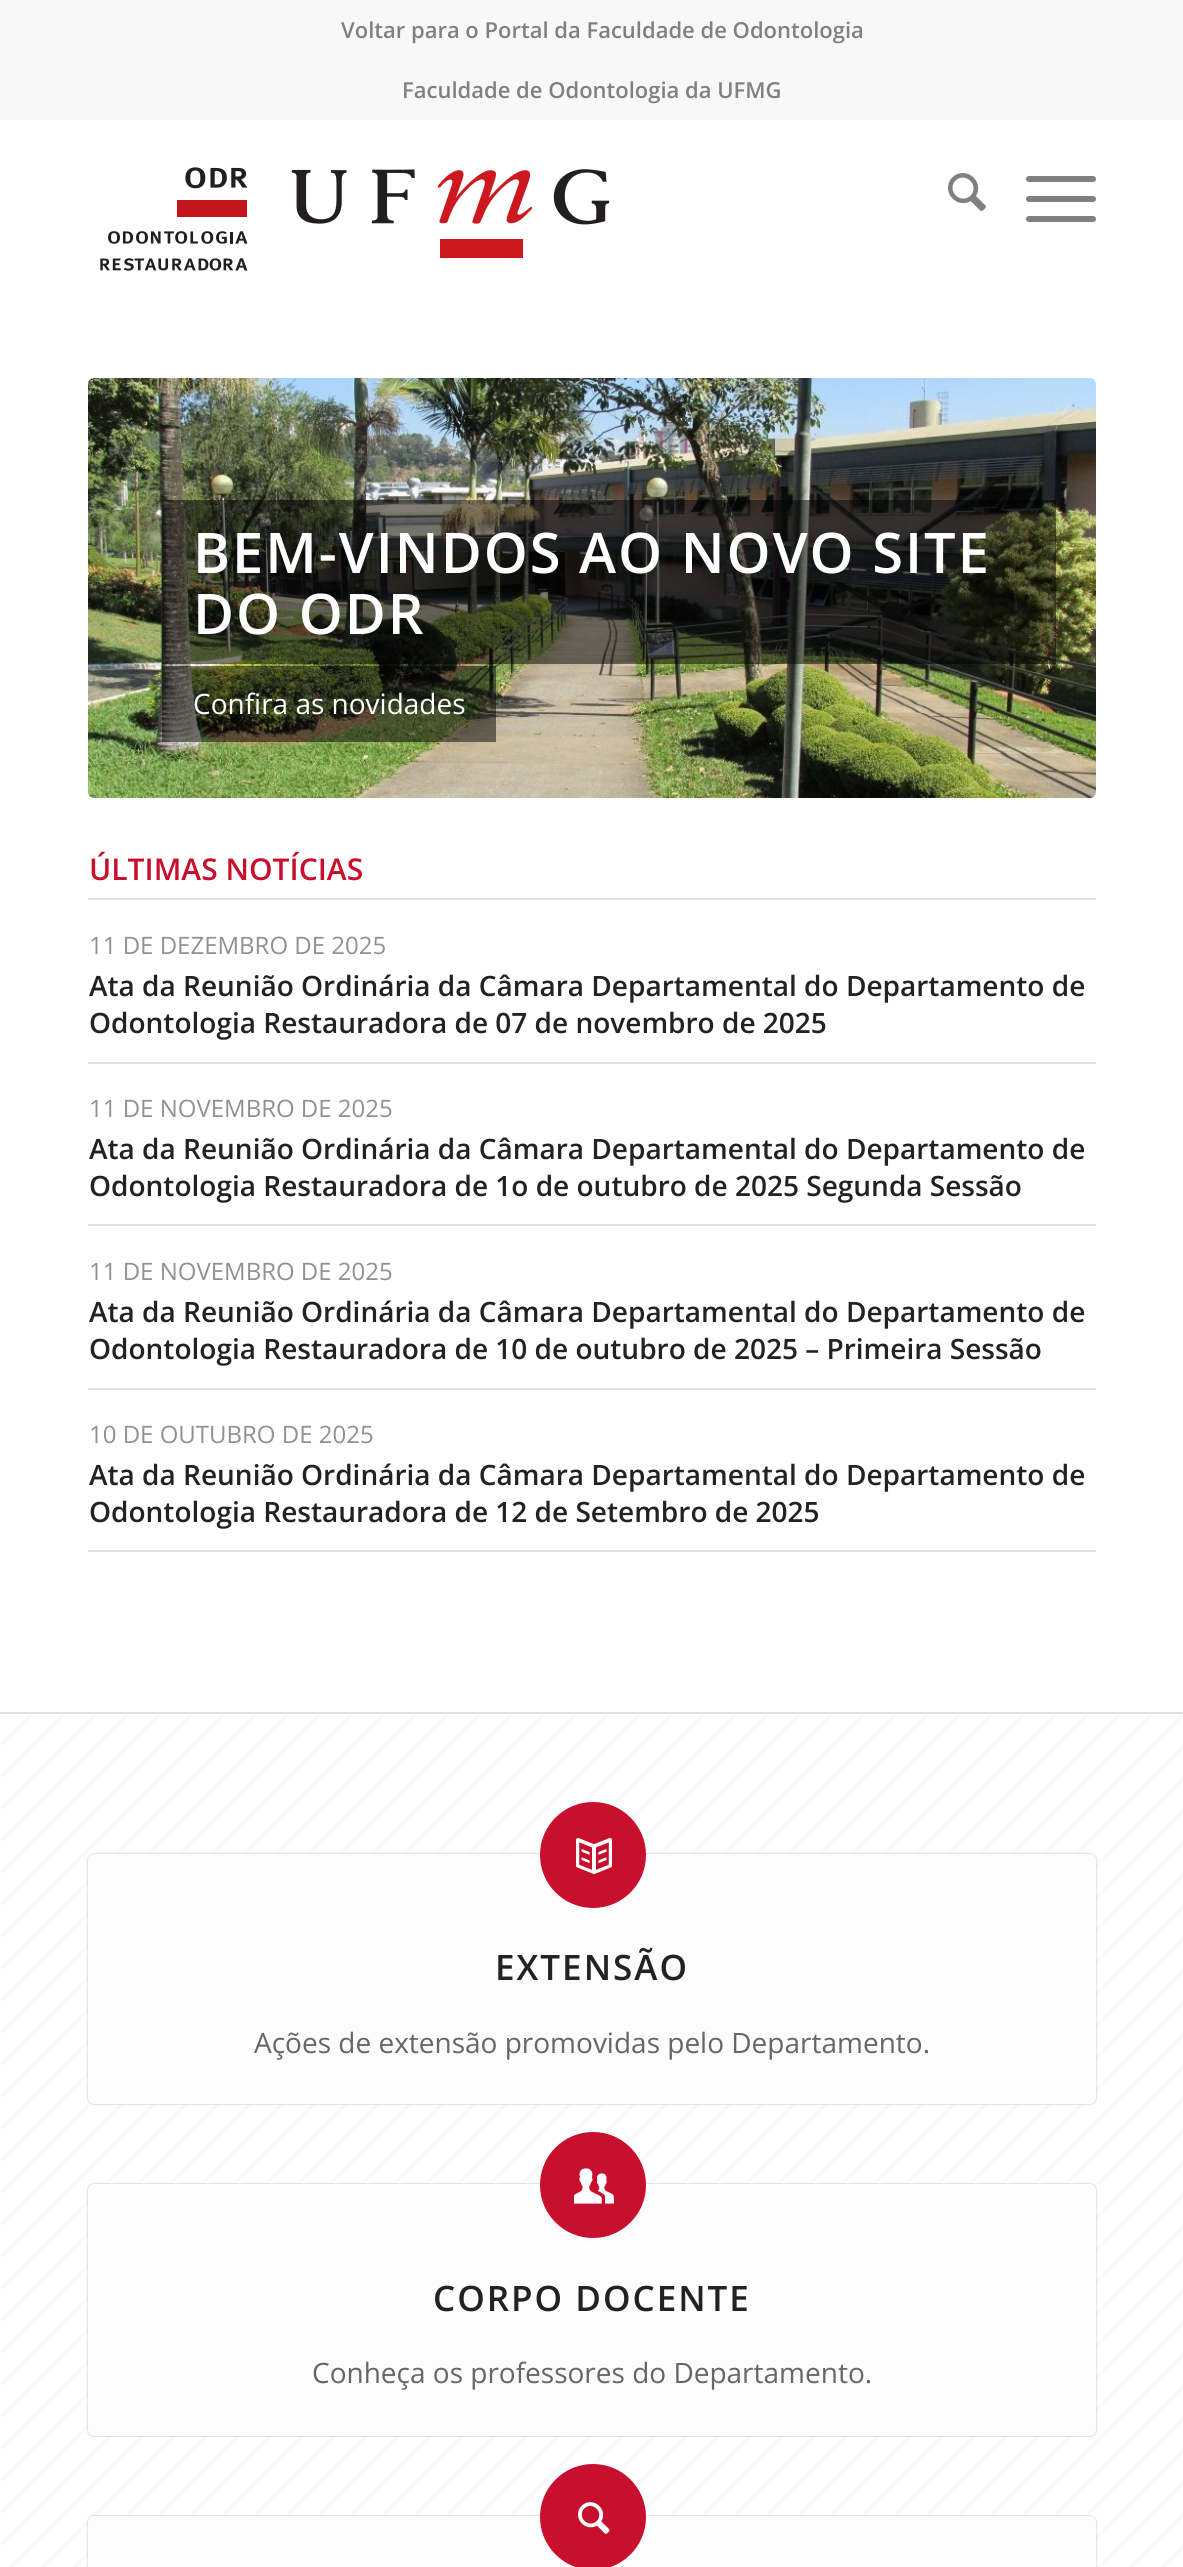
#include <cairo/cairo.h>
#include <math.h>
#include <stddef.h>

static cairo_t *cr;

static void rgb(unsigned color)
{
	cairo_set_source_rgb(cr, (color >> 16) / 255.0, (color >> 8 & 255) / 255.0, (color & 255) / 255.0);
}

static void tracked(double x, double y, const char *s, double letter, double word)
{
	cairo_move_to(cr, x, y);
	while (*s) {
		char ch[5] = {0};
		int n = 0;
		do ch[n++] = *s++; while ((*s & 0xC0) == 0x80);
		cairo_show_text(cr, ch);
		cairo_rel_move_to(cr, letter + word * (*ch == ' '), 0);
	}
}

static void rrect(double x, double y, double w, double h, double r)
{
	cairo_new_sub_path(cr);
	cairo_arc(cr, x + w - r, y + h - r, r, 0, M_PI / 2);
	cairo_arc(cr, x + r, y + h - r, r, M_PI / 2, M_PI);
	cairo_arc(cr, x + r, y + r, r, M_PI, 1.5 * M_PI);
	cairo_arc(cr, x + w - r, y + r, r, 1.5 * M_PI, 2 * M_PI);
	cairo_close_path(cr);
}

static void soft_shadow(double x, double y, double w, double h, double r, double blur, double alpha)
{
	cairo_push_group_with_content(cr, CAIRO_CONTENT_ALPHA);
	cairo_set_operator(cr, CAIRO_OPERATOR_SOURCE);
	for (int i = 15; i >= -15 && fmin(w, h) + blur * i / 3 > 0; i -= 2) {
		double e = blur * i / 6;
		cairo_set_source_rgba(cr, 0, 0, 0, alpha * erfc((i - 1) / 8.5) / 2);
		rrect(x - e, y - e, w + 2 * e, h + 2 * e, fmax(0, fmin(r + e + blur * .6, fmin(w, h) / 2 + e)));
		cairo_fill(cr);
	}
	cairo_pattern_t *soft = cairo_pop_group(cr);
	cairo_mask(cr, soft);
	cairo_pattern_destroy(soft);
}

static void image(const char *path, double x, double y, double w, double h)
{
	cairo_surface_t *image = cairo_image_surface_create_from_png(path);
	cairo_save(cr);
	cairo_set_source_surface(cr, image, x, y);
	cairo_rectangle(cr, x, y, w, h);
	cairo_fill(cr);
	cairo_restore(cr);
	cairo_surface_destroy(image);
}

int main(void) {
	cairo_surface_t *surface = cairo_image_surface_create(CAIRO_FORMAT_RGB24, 1183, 2567);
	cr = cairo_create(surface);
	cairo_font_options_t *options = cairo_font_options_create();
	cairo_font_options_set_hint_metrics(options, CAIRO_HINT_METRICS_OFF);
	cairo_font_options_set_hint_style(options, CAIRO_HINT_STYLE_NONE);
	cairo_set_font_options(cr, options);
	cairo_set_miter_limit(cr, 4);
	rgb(0xffffff);
	cairo_paint(cr);
	rgb(0xf8f8f8);
	cairo_rectangle(cr, 0, 0, 1183, 120);
	cairo_fill(cr);
	image("img/1.png", 100, 167, 510, 104);
	image("img/2.png", 948, 173, 38, 38);
	rgb(0x808080);
	rrect(1026, 196, 70, 6, 3);
	cairo_fill(cr);
	rrect(1026, 176, 70, 6, 3);
	cairo_fill(cr);
	rrect(1026, 216, 70, 6, 3);
	cairo_fill(cr);
	image("img/3.png", 88, 378, 1008, 420);
	cairo_set_source_rgba(cr, 0, 0, 0, 0.5);
	cairo_rectangle(cr, 162, 500, 894, 164);
	cairo_fill(cr);
	cairo_rectangle(cr, 162, 666, 334, 76);
	cairo_fill(cr);
	rgb(0xe1e1e1);
	cairo_rectangle(cr, 88, 898, 1008, 2);
	cairo_fill(cr);
	cairo_rectangle(cr, 88, 1062, 1008, 2);
	cairo_fill(cr);
	cairo_rectangle(cr, 88, 1224, 1008, 2);
	cairo_fill(cr);
	cairo_rectangle(cr, 88, 1388, 1008, 2);
	cairo_fill(cr);
	cairo_rectangle(cr, 88, 1550, 1008, 2);
	cairo_fill(cr);
	cairo_rectangle(cr, 0, 1712, 1183, 2);
	cairo_fill(cr);
	image("img/4.png", 1, 1715, 1182, 852);
	rgb(0x000000);
	soft_shadow(88, 1854, 1008, 250, 6, 1, 0.3);
	rgb(0xfcfcfc);
	rrect(88, 1854, 1008, 250, 6);
	cairo_fill(cr);
	rgb(0xc8102e);
	cairo_arc(cr, 593, 1855, 53, 0, 2 * M_PI);
	cairo_fill(cr);
	image("img/5.png", 576, 1838, 36, 36);
	rgb(0x000000);
	soft_shadow(88, 2184, 1008, 252, 6, 1, 0.3);
	rgb(0xfcfcfc);
	rrect(88, 2184, 1008, 252, 6);
	cairo_fill(cr);
	rgb(0xc8102e);
	cairo_arc(cr, 593, 2185, 53, 0, 2 * M_PI);
	cairo_fill(cr);
	image("img/6.png", 574, 2168, 40, 36);
	rgb(0x000000);
	soft_shadow(88, 2516, 1008, 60, 6, 1, 0.3);
	rgb(0xfcfcfc);
	rrect(88, 2516, 1008, 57, 6);
	cairo_fill(cr);
	rgb(0xc8102e);
	cairo_arc(cr, 593, 2517, 53, 0, 2 * M_PI);
	cairo_fill(cr);
	image("img/7.png", 578, 2502, 32, 32);
	cairo_select_font_face(cr, "Open Sans SemiBold", CAIRO_FONT_SLANT_NORMAL, CAIRO_FONT_WEIGHT_NORMAL);
	cairo_set_font_size(cr, 22);
	rgb(0x808080);
	cairo_move_to(cr, 341, 38);
	cairo_show_text(cr, "Voltar para o Portal da Faculdade de Odontologia");
	cairo_move_to(cr, 402, 98);
	cairo_show_text(cr, "Faculdade de Odontologia da UFMG");
	cairo_set_font_size(cr, 56);
	rgb(0xffffff);
	tracked(193, 573, "BEM-VINDOS AO NOVO SITE", 2, 0);
	tracked(193, 634, "DO ODR", 2, 0);
	cairo_select_font_face(cr, "Open Sans", CAIRO_FONT_SLANT_NORMAL, CAIRO_FONT_WEIGHT_NORMAL);
	cairo_set_font_size(cr, 28);
	cairo_move_to(cr, 193, 714);
	cairo_show_text(cr, "Confira as novidades");
	cairo_select_font_face(cr, "Open Sans SemiBold", CAIRO_FONT_SLANT_NORMAL, CAIRO_FONT_WEIGHT_NORMAL);
	cairo_set_font_size(cr, 30);
	rgb(0xc8102e);
	cairo_move_to(cr, 89, 880);
	cairo_show_text(cr, "ÚLTIMAS NOTÍCIAS");
	cairo_select_font_face(cr, "Open Sans", CAIRO_FONT_SLANT_NORMAL, CAIRO_FONT_WEIGHT_NORMAL);
	cairo_set_font_size(cr, 24);
	rgb(0x919191);
	cairo_move_to(cr, 89, 954);
	cairo_show_text(cr, "11 DE DEZEMBRO DE 2025");
	cairo_select_font_face(cr, "Open Sans SemiBold", CAIRO_FONT_SLANT_NORMAL, CAIRO_FONT_WEIGHT_NORMAL);
	cairo_set_font_size(cr, 28);
	rgb(0x222222);
	cairo_move_to(cr, 89, 996);
	cairo_show_text(cr, "Ata da Reunião Ordinária da Câmara Departamental do Departamento de");
	cairo_move_to(cr, 89, 1033);
	cairo_show_text(cr, "Odontologia Restauradora de 07 de novembro de 2025");
	cairo_select_font_face(cr, "Open Sans", CAIRO_FONT_SLANT_NORMAL, CAIRO_FONT_WEIGHT_NORMAL);
	cairo_set_font_size(cr, 24);
	rgb(0x919191);
	cairo_move_to(cr, 89, 1117);
	cairo_show_text(cr, "11 DE NOVEMBRO DE 2025");
	cairo_select_font_face(cr, "Open Sans SemiBold", CAIRO_FONT_SLANT_NORMAL, CAIRO_FONT_WEIGHT_NORMAL);
	cairo_set_font_size(cr, 28);
	rgb(0x222222);
	cairo_move_to(cr, 89, 1159);
	cairo_show_text(cr, "Ata da Reunião Ordinária da Câmara Departamental do Departamento de");
	cairo_move_to(cr, 89, 1196);
	cairo_show_text(cr, "Odontologia Restauradora de 1o de outubro de 2025 Segunda Sessão");
	cairo_select_font_face(cr, "Open Sans", CAIRO_FONT_SLANT_NORMAL, CAIRO_FONT_WEIGHT_NORMAL);
	cairo_set_font_size(cr, 24);
	rgb(0x919191);
	cairo_move_to(cr, 89, 1280);
	cairo_show_text(cr, "11 DE NOVEMBRO DE 2025");
	cairo_select_font_face(cr, "Open Sans SemiBold", CAIRO_FONT_SLANT_NORMAL, CAIRO_FONT_WEIGHT_NORMAL);
	cairo_set_font_size(cr, 28);
	rgb(0x222222);
	cairo_move_to(cr, 89, 1322);
	cairo_show_text(cr, "Ata da Reunião Ordinária da Câmara Departamental do Departamento de");
	cairo_move_to(cr, 89, 1359);
	cairo_show_text(cr, "Odontologia Restauradora de 10 de outubro de 2025 – Primeira Sessão");
	cairo_select_font_face(cr, "Open Sans", CAIRO_FONT_SLANT_NORMAL, CAIRO_FONT_WEIGHT_NORMAL);
	cairo_set_font_size(cr, 24);
	rgb(0x919191);
	cairo_move_to(cr, 89, 1443);
	cairo_show_text(cr, "10 DE OUTUBRO DE 2025");
	cairo_select_font_face(cr, "Open Sans SemiBold", CAIRO_FONT_SLANT_NORMAL, CAIRO_FONT_WEIGHT_NORMAL);
	cairo_set_font_size(cr, 28);
	rgb(0x222222);
	cairo_move_to(cr, 89, 1485);
	cairo_show_text(cr, "Ata da Reunião Ordinária da Câmara Departamental do Departamento de");
	cairo_move_to(cr, 89, 1522);
	cairo_show_text(cr, "Odontologia Restauradora de 12 de Setembro de 2025");
	cairo_set_font_size(cr, 35);
	tracked(495, 1980, "EXTENSÃO", 2, 0);
	cairo_select_font_face(cr, "Open Sans", CAIRO_FONT_SLANT_NORMAL, CAIRO_FONT_WEIGHT_NORMAL);
	cairo_set_font_size(cr, 28);
	rgb(0x666666);
	cairo_move_to(cr, 254, 2053);
	cairo_show_text(cr, "Ações de extensão promovidas pelo Departamento.");
	cairo_select_font_face(cr, "Open Sans SemiBold", CAIRO_FONT_SLANT_NORMAL, CAIRO_FONT_WEIGHT_NORMAL);
	cairo_set_font_size(cr, 35);
	rgb(0x222222);
	tracked(433, 2311, "CORPO DOCENTE", 2, 0);
	cairo_select_font_face(cr, "Open Sans", CAIRO_FONT_SLANT_NORMAL, CAIRO_FONT_WEIGHT_NORMAL);
	cairo_set_font_size(cr, 28);
	rgb(0x666666);
	cairo_move_to(cr, 312, 2383);
	cairo_show_text(cr, "Conheça os professores do Departamento.");
	cairo_surface_write_to_png(surface, "page.png");
	cairo_font_options_destroy(options);
	cairo_destroy(cr);
	cairo_surface_destroy(surface);
	return 0;
}
